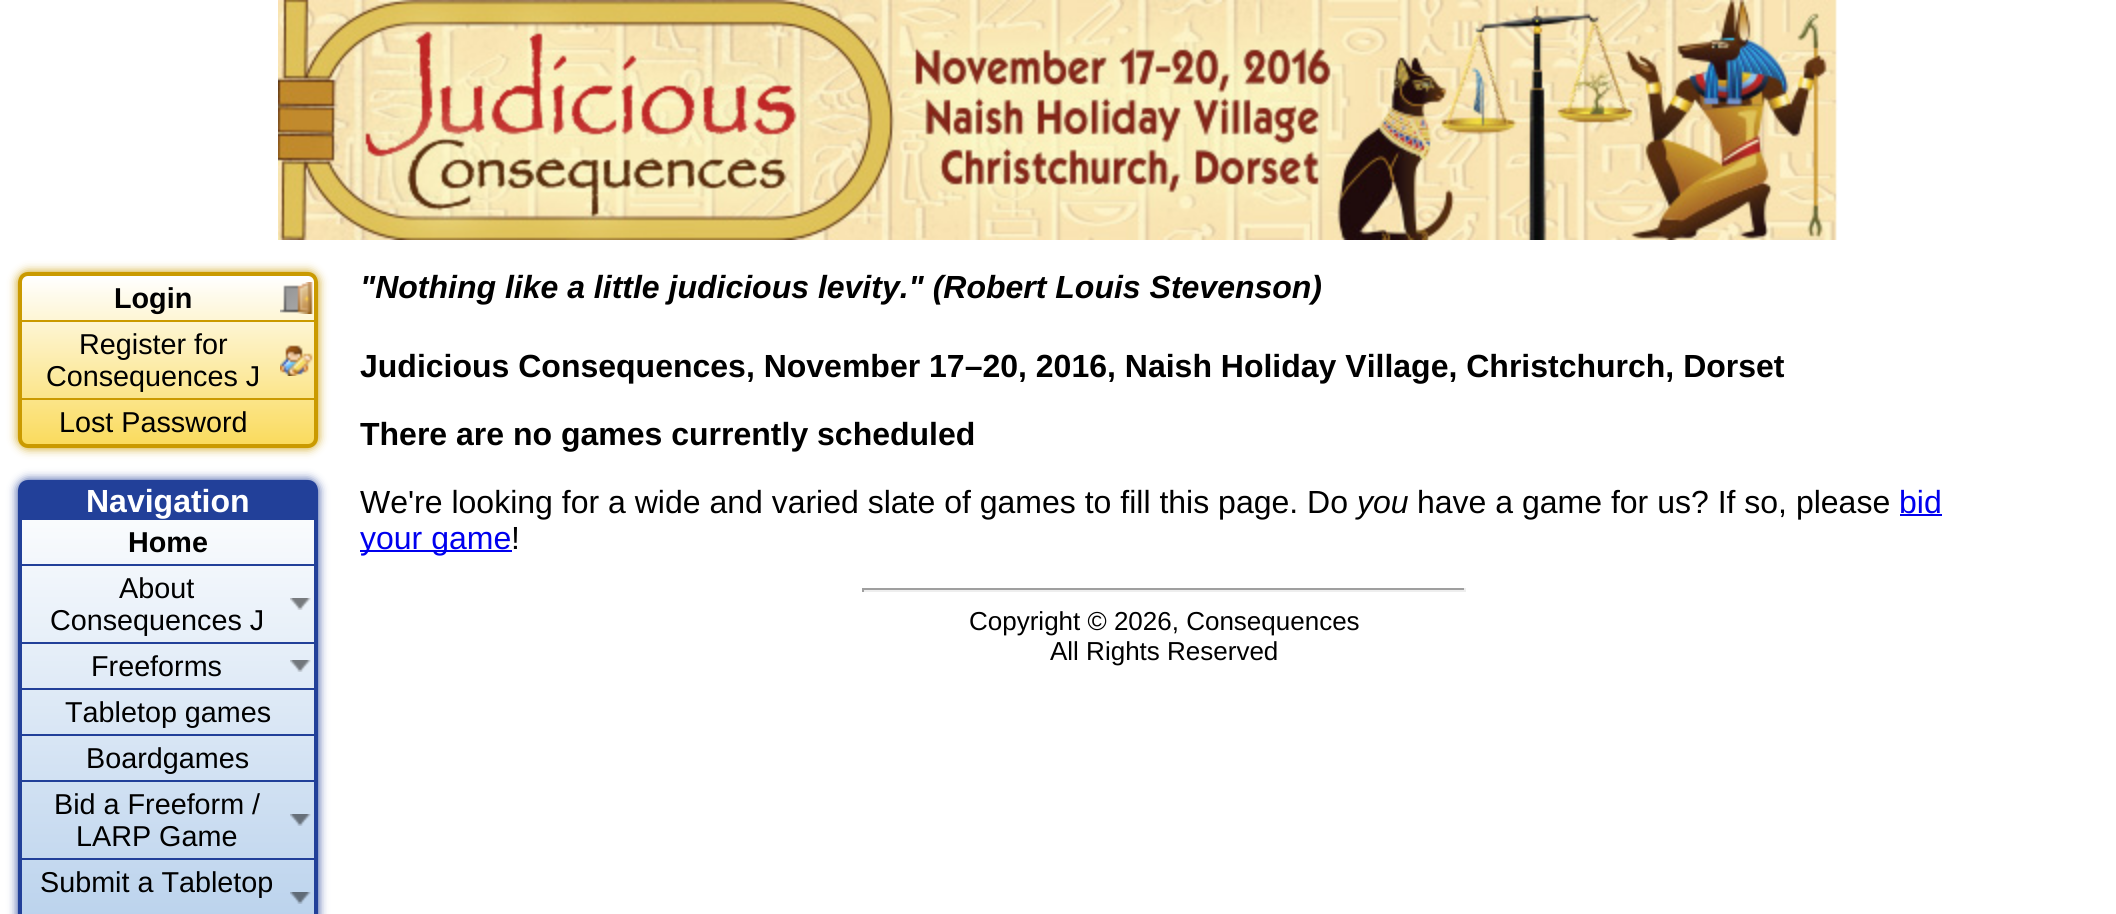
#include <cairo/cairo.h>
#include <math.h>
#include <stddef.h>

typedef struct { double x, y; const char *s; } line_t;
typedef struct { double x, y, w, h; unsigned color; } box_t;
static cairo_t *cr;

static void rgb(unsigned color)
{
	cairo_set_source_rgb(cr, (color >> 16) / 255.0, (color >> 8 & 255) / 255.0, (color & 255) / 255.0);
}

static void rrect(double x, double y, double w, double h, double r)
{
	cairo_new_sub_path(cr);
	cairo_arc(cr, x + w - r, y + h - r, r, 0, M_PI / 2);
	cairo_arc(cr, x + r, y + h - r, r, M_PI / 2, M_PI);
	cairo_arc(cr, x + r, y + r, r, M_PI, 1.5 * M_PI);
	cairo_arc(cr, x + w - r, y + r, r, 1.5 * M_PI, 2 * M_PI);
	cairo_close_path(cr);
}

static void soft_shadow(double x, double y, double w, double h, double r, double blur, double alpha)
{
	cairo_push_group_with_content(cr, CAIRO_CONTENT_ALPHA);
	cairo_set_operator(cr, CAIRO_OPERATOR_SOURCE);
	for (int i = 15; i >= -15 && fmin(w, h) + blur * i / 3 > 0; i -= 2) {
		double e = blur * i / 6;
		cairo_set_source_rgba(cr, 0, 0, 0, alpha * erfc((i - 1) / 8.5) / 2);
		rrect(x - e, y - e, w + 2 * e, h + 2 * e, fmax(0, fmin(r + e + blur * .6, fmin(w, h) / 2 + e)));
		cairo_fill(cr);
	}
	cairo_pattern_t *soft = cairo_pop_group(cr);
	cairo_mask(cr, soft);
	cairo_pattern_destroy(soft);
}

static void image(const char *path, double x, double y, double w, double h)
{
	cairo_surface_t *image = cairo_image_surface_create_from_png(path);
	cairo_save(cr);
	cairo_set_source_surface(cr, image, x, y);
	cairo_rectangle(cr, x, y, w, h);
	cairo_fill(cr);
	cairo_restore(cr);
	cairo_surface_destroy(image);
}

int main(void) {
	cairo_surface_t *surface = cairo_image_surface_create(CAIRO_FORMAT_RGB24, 2116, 914);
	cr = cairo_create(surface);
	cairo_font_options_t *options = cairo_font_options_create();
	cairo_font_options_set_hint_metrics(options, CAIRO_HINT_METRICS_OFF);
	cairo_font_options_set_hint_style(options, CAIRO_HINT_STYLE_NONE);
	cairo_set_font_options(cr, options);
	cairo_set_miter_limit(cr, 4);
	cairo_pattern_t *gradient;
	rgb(0xffffff);
	cairo_paint(cr);
	image("img/1.png", 278, 0, 1560, 240);
	rgb(0xca9a00);
	soft_shadow(18, 272, 300, 176, 10, 5, 1);
	cairo_save(cr);
	rrect(18, 272, 300, 176, 10);
	cairo_clip(cr);
	gradient = cairo_pattern_create_linear(22, 276, 22, 444);
	cairo_pattern_add_color_stop_rgba(gradient, 0, 1, 1, 1, 1);
	cairo_pattern_add_color_stop_rgba(gradient, 1, 0.98, 0.859, 0.369, 1);
	cairo_set_source(cr, gradient);
	cairo_pattern_destroy(gradient);
	cairo_rectangle(cr, 18, 276, 300, 168);
	cairo_fill(cr);
	cairo_restore(cr);
	rrect(20, 274, 296, 172, 8);
	rgb(0xca9a00);
	cairo_set_line_width(cr, 4);
	cairo_stroke(cr);
	cairo_rectangle(cr, 22, 320, 292, 2);
	cairo_fill(cr);
	image("img/2.png", 280, 282, 33, 32);
	cairo_rectangle(cr, 22, 398, 292, 2);
	cairo_fill(cr);
	image("img/3.png", 280, 345, 33, 31);
	rgb(0x224099);
	soft_shadow(18, 480, 300, 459, 10, 5, 1);
	cairo_save(cr);
	rrect(18, 480, 300, 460, 10);
	cairo_clip(cr);
	gradient = cairo_pattern_create_linear(22, 484, 22, 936);
	cairo_pattern_add_color_stop_rgba(gradient, 0, 1, 1, 1, 1);
	cairo_pattern_add_color_stop_rgba(gradient, 1, 0.725, 0.82, 0.925, 1);
	cairo_set_source(cr, gradient);
	cairo_pattern_destroy(gradient);
	cairo_rectangle(cr, 18, 484, 300, 430);
	cairo_fill(cr);
	cairo_restore(cr);
	rrect(20, 482, 296, 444, 8);
	rgb(0x224099);
	cairo_stroke(cr);
	{
		static const box_t items[] = {
			{22, 484, 292, 36, 0x224099},
			{22, 564, 292, 2, 0x224099},
			{22, 642, 292, 2, 0x224099},
		};
		for (size_t i = 0; i < sizeof items / sizeof *items; i++) {
			rgb(items[i].color);
			cairo_rectangle(cr, items[i].x, items[i].y, items[i].w, items[i].h);
			cairo_fill(cr);
		}
	}
	image("img/4.png", 290, 598, 21, 12);
	cairo_rectangle(cr, 22, 688, 292, 2);
	cairo_fill(cr);
	image("img/5.png", 290, 660, 21, 12);
	{
		static const box_t items[] = {
			{22, 734, 292, 2, 0x224099},
			{22, 780, 292, 2, 0x224099},
			{22, 858, 292, 2, 0x224099},
		};
		for (size_t i = 0; i < sizeof items / sizeof *items; i++) {
			rgb(items[i].color);
			cairo_rectangle(cr, items[i].x, items[i].y, items[i].w, items[i].h);
			cairo_fill(cr);
		}
	}
	image("img/6.png", 290, 814, 21, 12);
	image("img/7.png", 290, 892, 21, 12);
	{
		static const box_t items[] = {
			{1900, 514, 42, 2, 0x0000ee},
			{360, 550, 152, 2, 0x0000ee},
			{862, 588, 604, 2, 0x9f9f9f},
			{1464, 588, 2, 4, 0xeeeeee},
			{862, 590, 604, 2, 0xeeeeee},
			{862, 588, 2, 4, 0x9f9f9f},
		};
		for (size_t i = 0; i < sizeof items / sizeof *items; i++) {
			rgb(items[i].color);
			cairo_rectangle(cr, items[i].x, items[i].y, items[i].w, items[i].h);
			cairo_fill(cr);
		}
	}
	cairo_select_font_face(cr, "Liberation Sans", CAIRO_FONT_SLANT_NORMAL, CAIRO_FONT_WEIGHT_BOLD);
	cairo_set_font_size(cr, 28.75);
	rgb(0x000000);
	cairo_move_to(cr, 114, 308);
	cairo_show_text(cr, "Login");
	cairo_select_font_face(cr, "Liberation Sans", CAIRO_FONT_SLANT_NORMAL, CAIRO_FONT_WEIGHT_NORMAL);
	{
		static const line_t items[] = {
			{79, 354, "Register for"},
			{46, 386, "Consequences J"},
			{59, 432, "Lost Password"},
		};
		for (size_t i = 0; i < sizeof items / sizeof *items; i++) {
			cairo_move_to(cr, items[i].x, items[i].y);
			cairo_show_text(cr, items[i].s);
		}
	}
	cairo_select_font_face(cr, "Liberation Sans", CAIRO_FONT_SLANT_NORMAL, CAIRO_FONT_WEIGHT_BOLD);
	cairo_set_font_size(cr, 32);
	rgb(0xffffff);
	cairo_move_to(cr, 86, 512);
	cairo_show_text(cr, "Navigation");
	cairo_set_font_size(cr, 28.75);
	rgb(0x000000);
	cairo_move_to(cr, 128, 552);
	cairo_show_text(cr, "Home");
	cairo_select_font_face(cr, "Liberation Sans", CAIRO_FONT_SLANT_NORMAL, CAIRO_FONT_WEIGHT_NORMAL);
	{
		static const line_t items[] = {
			{119, 598, "About"},
			{50, 630, "Consequences J"},
			{91, 676, "Freeforms"},
			{65, 722, "Tabletop games"},
			{86, 768, "Boardgames"},
			{54, 814, "Bid a Freeform /"},
			{76, 846, "LARP Game"},
			{40, 892, "Submit a Tabletop"},
		};
		for (size_t i = 0; i < sizeof items / sizeof *items; i++) {
			cairo_move_to(cr, items[i].x, items[i].y);
			cairo_show_text(cr, items[i].s);
		}
	}
	cairo_select_font_face(cr, "Liberation Sans", CAIRO_FONT_SLANT_ITALIC, CAIRO_FONT_WEIGHT_BOLD);
	cairo_set_font_size(cr, 32);
	cairo_move_to(cr, 360, 298);
	cairo_show_text(cr, "\"Nothing like a little judicious levity.\" (Robert Louis Stevenson)");
	cairo_select_font_face(cr, "Liberation Sans", CAIRO_FONT_SLANT_NORMAL, CAIRO_FONT_WEIGHT_BOLD);
	cairo_move_to(cr, 360, 377);
	cairo_show_text(cr, "Judicious Consequences, November 17–20, 2016, Naish Holiday Village, Christchurch, Dorset");
	cairo_move_to(cr, 360, 445);
	cairo_show_text(cr, "There are no games currently scheduled");
	cairo_select_font_face(cr, "Liberation Sans", CAIRO_FONT_SLANT_NORMAL, CAIRO_FONT_WEIGHT_NORMAL);
	cairo_move_to(cr, 360, 513);
	cairo_show_text(cr, "We're looking for a wide and varied slate of games to fill this page. Do");
	cairo_select_font_face(cr, "Liberation Sans", CAIRO_FONT_SLANT_ITALIC, CAIRO_FONT_WEIGHT_NORMAL);
	cairo_move_to(cr, 1357, 513);
	cairo_show_text(cr, "you");
	cairo_select_font_face(cr, "Liberation Sans", CAIRO_FONT_SLANT_NORMAL, CAIRO_FONT_WEIGHT_NORMAL);
	cairo_move_to(cr, 1417, 513);
	cairo_show_text(cr, "have a game for us? If so, please");
	rgb(0x0000ee);
	cairo_move_to(cr, 1899, 513);
	cairo_show_text(cr, "bid");
	cairo_move_to(cr, 360, 549);
	cairo_show_text(cr, "your game");
	rgb(0x000000);
	cairo_move_to(cr, 511, 549);
	cairo_show_text(cr, "!");
	cairo_set_font_size(cr, 26);
	cairo_move_to(cr, 969, 630);
	cairo_show_text(cr, "Copyright © 2026, Consequences");
	cairo_move_to(cr, 1050, 660);
	cairo_show_text(cr, "All Rights Reserved");
	cairo_surface_write_to_png(surface, "page.png");
	cairo_font_options_destroy(options);
	cairo_destroy(cr);
	cairo_surface_destroy(surface);
	return 0;
}
